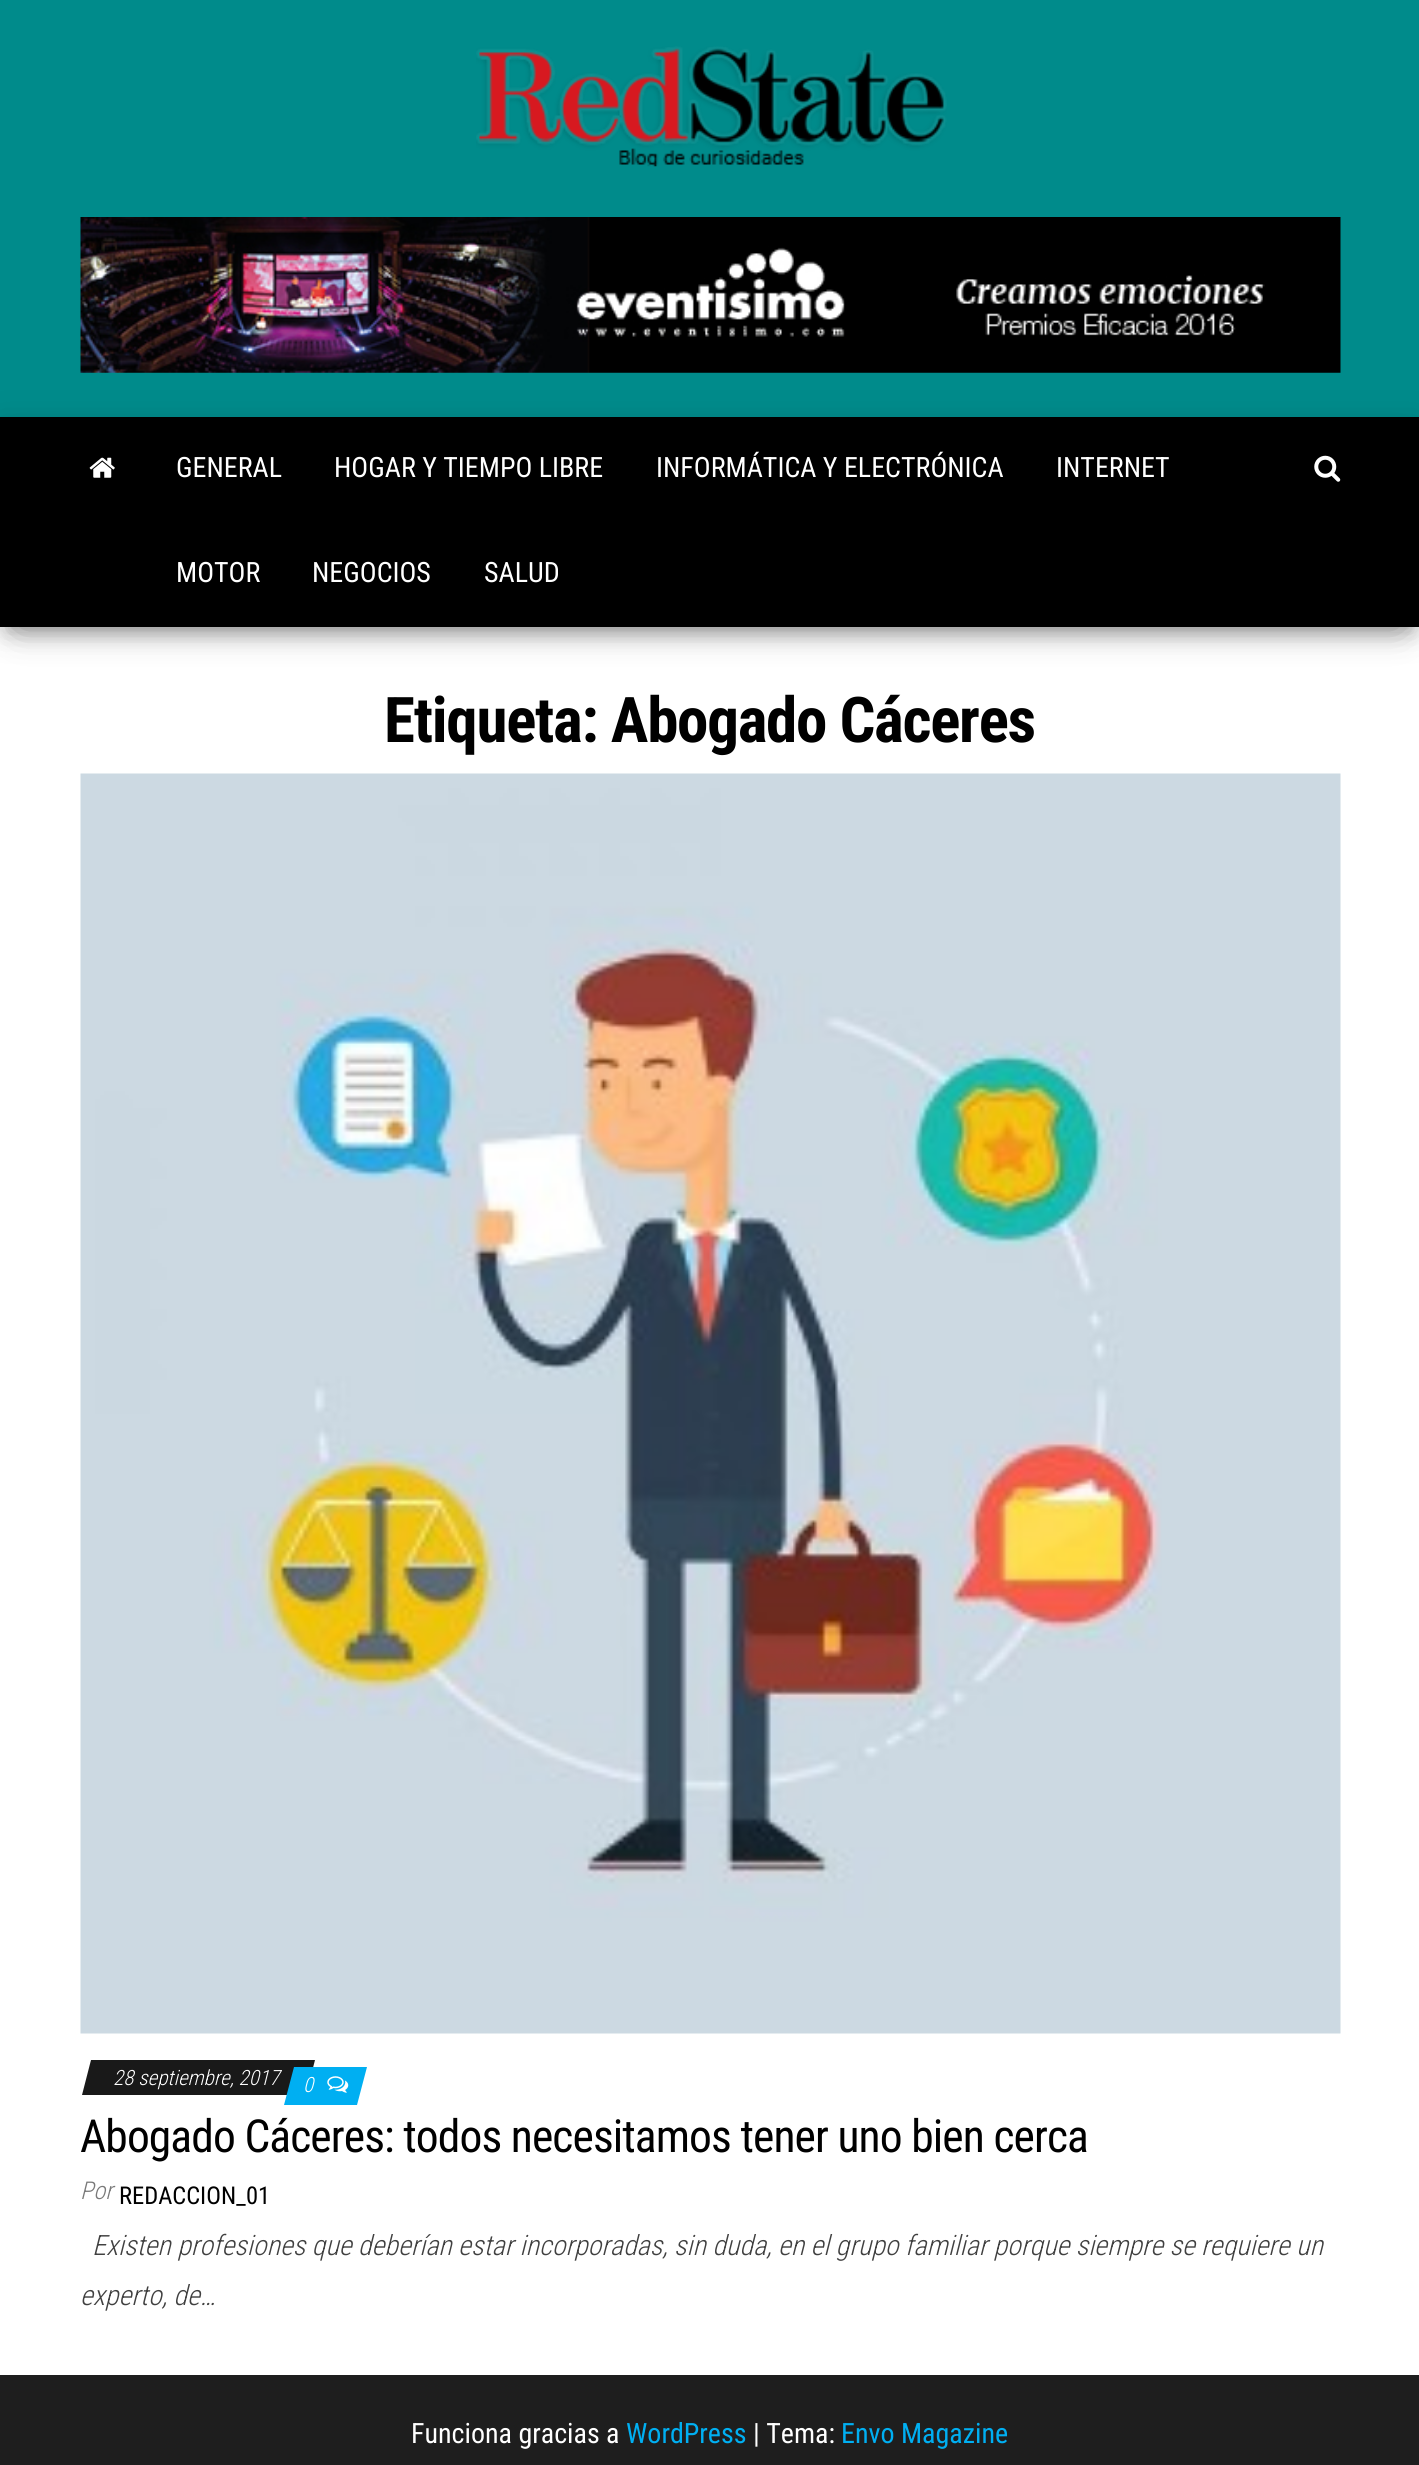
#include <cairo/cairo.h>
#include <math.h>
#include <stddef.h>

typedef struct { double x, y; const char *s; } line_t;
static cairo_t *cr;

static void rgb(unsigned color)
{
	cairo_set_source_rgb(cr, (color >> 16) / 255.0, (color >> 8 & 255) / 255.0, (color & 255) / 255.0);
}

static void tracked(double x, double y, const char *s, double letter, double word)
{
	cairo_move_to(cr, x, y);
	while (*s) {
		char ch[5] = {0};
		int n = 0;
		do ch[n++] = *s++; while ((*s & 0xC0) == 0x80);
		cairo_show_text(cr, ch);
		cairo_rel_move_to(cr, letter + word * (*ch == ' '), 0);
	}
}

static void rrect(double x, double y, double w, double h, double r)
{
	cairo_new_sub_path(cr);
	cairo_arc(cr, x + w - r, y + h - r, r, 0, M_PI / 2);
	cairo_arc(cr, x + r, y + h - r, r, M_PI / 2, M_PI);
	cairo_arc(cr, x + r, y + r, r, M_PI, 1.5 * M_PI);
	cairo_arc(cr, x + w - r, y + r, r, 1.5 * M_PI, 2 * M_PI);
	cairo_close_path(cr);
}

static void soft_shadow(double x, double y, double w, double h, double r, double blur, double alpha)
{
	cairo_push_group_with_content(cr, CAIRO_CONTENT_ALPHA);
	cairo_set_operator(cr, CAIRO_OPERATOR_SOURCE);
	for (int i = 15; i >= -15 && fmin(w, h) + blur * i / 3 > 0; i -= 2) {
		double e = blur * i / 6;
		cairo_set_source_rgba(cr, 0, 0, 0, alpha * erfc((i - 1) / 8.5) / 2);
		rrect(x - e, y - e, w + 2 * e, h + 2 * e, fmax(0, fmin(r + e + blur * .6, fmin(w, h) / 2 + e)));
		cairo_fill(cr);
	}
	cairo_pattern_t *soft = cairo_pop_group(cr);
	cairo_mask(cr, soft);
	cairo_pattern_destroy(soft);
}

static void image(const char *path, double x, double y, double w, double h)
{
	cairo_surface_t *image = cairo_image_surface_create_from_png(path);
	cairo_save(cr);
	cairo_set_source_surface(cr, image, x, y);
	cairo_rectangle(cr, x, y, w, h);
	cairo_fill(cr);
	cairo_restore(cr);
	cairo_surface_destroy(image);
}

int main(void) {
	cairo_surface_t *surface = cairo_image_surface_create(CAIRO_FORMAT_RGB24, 1419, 2465);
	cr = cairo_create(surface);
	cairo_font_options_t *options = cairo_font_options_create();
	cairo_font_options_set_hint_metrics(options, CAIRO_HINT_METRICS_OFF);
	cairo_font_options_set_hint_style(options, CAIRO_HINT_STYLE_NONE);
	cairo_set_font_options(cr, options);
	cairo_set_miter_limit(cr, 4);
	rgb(0xffffff);
	cairo_paint(cr);
	rgb(0x008b8b);
	cairo_rectangle(cr, 0, 0, 1419, 417);
	cairo_fill(cr);
	image("img/1.png", 476, 46, 471, 121);
	image("img/2.png", 80, 217, 1261, 156);
	rgb(0x000000);
	soft_shadow(9, 439, 1402, 193, 0, 9, 0.2);
	soft_shadow(0, 422, 1419, 210, 0, 17.5, 0.12);
	soft_shadow(21, 455, 1377, 168, 0, 17.5, 0.42);
	rgb(0x000000);
	cairo_rectangle(cr, 0, 417, 1419, 210);
	cairo_fill(cr);
	image("img/3.png", 89, 457, 26, 21);
	image("img/4.png", 1314, 455, 27, 27);
	image("img/5.png", 80, 773, 1261, 1261);
	rgb(0x191919);
	cairo_new_path(cr);
	cairo_move_to(cr, 91, 2060);
	cairo_line_to(cr, 315, 2060);
	cairo_line_to(cr, 306, 2095);
	cairo_line_to(cr, 82, 2095);
	cairo_close_path(cr);
	cairo_fill(cr);
	rgb(0x00aff2);
	cairo_new_path(cr);
	cairo_move_to(cr, 294, 2067);
	cairo_line_to(cr, 367, 2067);
	cairo_line_to(cr, 357, 2105);
	cairo_line_to(cr, 284, 2105);
	cairo_close_path(cr);
	cairo_fill(cr);
	image("img/6.png", 327, 2076, 22, 17);
	rgb(0x1e1e1e);
	cairo_rectangle(cr, 0, 2375, 1419, 90);
	cairo_fill(cr);
	cairo_select_font_face(cr, "Roboto Condensed", CAIRO_FONT_SLANT_NORMAL, CAIRO_FONT_WEIGHT_NORMAL);
	cairo_set_font_size(cr, 28);
	rgb(0xffffff);
	{
		static const line_t items[] = {
			{176, 477, "GENERAL"},
			{334, 477, "HOGAR Y TIEMPO LIBRE"},
			{656, 477, "INFORMÁTICA Y ELECTRÓNICA"},
			{1056, 477, "INTERNET"},
			{176, 582, "MOTOR"},
			{312, 582, "NEGOCIOS"},
			{484, 582, "SALUD"},
		};
		for (size_t i = 0; i < sizeof items / sizeof *items; i++) {
			cairo_move_to(cr, items[i].x, items[i].y);
			cairo_show_text(cr, items[i].s);
		}
	}
	cairo_select_font_face(cr, "Roboto Condensed", CAIRO_FONT_SLANT_NORMAL, CAIRO_FONT_WEIGHT_BOLD);
	cairo_set_font_size(cr, 63);
	rgb(0x000000);
	tracked(384, 742, "Etiqueta: Abogado Cáceres", -1.25, 0);
	cairo_select_font_face(cr, "Roboto Condensed Light", CAIRO_FONT_SLANT_ITALIC, CAIRO_FONT_WEIGHT_NORMAL);
	cairo_set_font_size(cr, 21);
	rgb(0xffffff);
	cairo_move_to(cr, 113, 2085);
	cairo_show_text(cr, "28 septiembre, 2017");
	cairo_move_to(cr, 303, 2092);
	cairo_show_text(cr, "0");
	cairo_select_font_face(cr, "Roboto Condensed", CAIRO_FONT_SLANT_NORMAL, CAIRO_FONT_WEIGHT_NORMAL);
	cairo_set_font_size(cr, 45.5);
	rgb(0x000000);
	tracked(80, 2152, "Abogado Cáceres: todos necesitamos tener uno bien cerca", -0.9, 0);
	cairo_select_font_face(cr, "Roboto Condensed Light", CAIRO_FONT_SLANT_ITALIC, CAIRO_FONT_WEIGHT_NORMAL);
	cairo_set_font_size(cr, 24.5);
	rgb(0x797979);
	cairo_move_to(cr, 80, 2199);
	cairo_show_text(cr, "Por");
	cairo_select_font_face(cr, "Roboto Condensed", CAIRO_FONT_SLANT_NORMAL, CAIRO_FONT_WEIGHT_NORMAL);
	rgb(0x000000);
	cairo_move_to(cr, 119, 2204);
	cairo_show_text(cr, "REDACCION_01");
	cairo_select_font_face(cr, "Roboto Condensed Light", CAIRO_FONT_SLANT_ITALIC, CAIRO_FONT_WEIGHT_NORMAL);
	cairo_set_font_size(cr, 28);
	rgb(0x404040);
	cairo_move_to(cr, 92, 2255);
	cairo_show_text(cr, "Existen profesiones que deberían estar incorporadas, sin duda, en el grupo familiar porque siempre se requiere un");
	cairo_move_to(cr, 80, 2305);
	cairo_show_text(cr, "experto, de…");
	cairo_select_font_face(cr, "Roboto Condensed", CAIRO_FONT_SLANT_NORMAL, CAIRO_FONT_WEIGHT_NORMAL);
	rgb(0xffffff);
	cairo_move_to(cr, 411, 2443);
	cairo_show_text(cr, "Funciona gracias a");
	rgb(0x00aff2);
	cairo_move_to(cr, 626, 2443);
	cairo_show_text(cr, "WordPress");
	rgb(0xffffff);
	cairo_move_to(cr, 753, 2443);
	cairo_show_text(cr, "| Tema:");
	rgb(0x00aff2);
	cairo_move_to(cr, 841, 2443);
	cairo_show_text(cr, "Envo Magazine");
	cairo_surface_write_to_png(surface, "page.png");
	cairo_font_options_destroy(options);
	cairo_destroy(cr);
	cairo_surface_destroy(surface);
	return 0;
}
